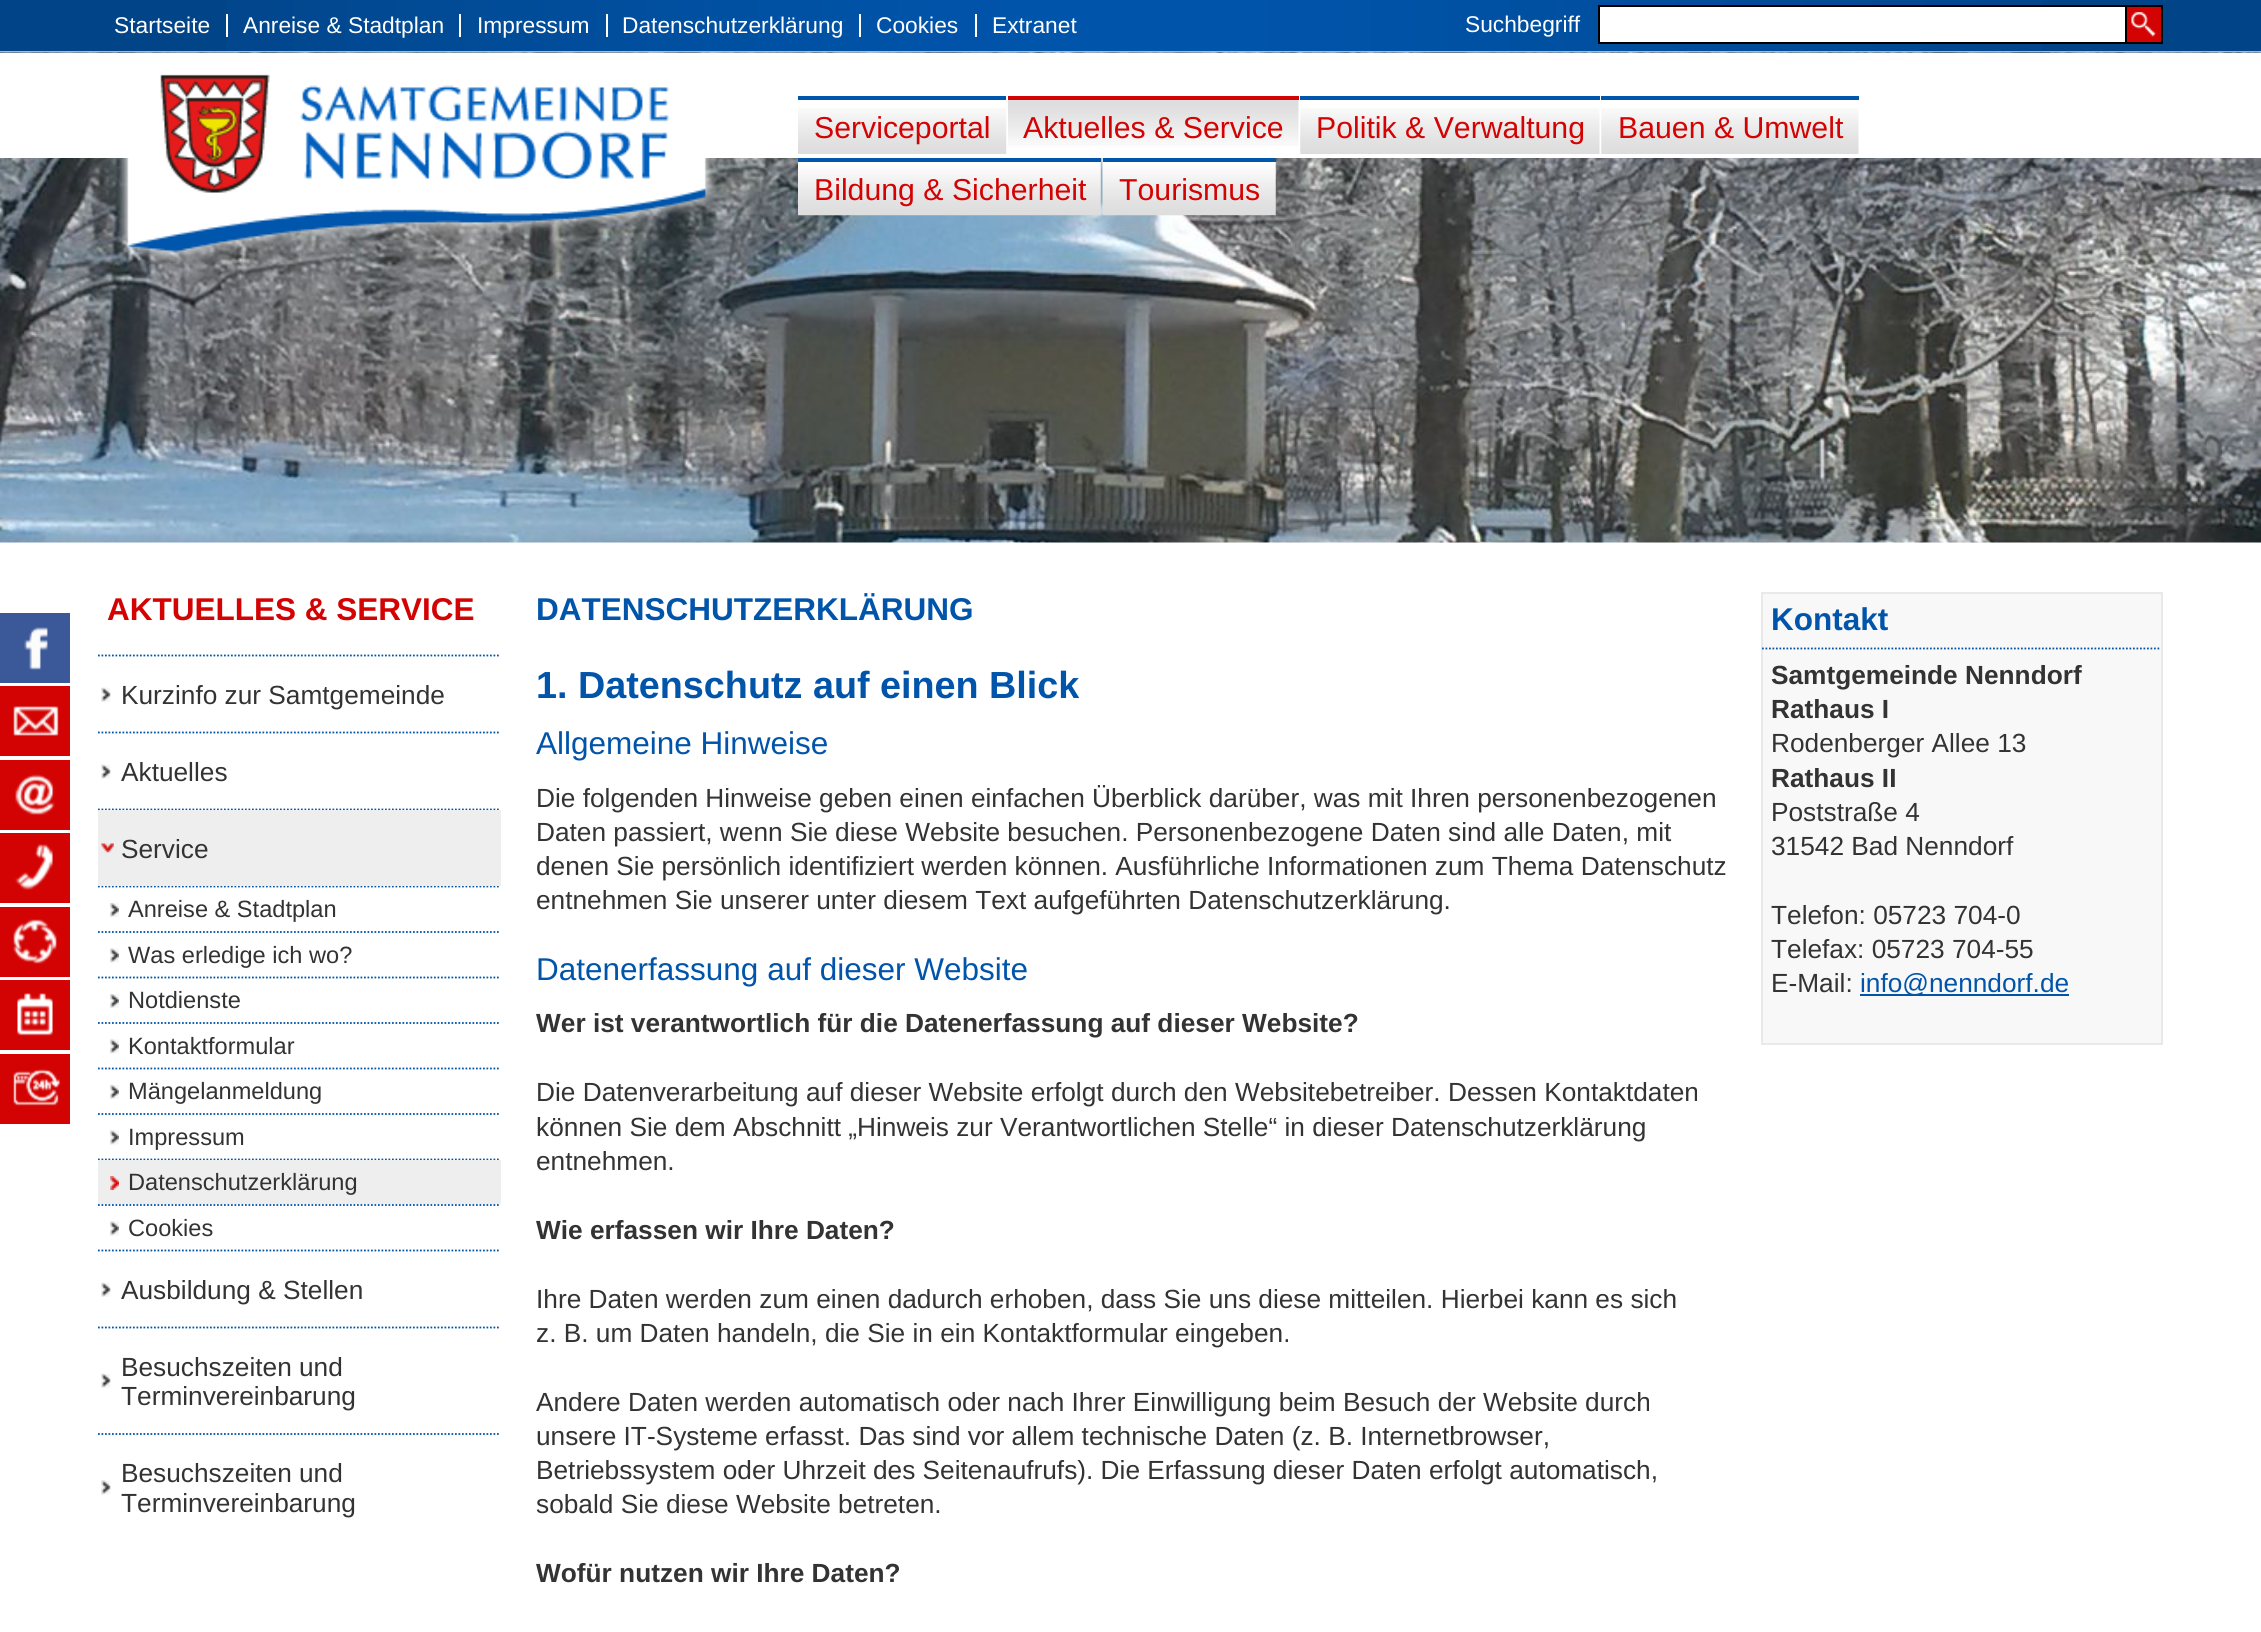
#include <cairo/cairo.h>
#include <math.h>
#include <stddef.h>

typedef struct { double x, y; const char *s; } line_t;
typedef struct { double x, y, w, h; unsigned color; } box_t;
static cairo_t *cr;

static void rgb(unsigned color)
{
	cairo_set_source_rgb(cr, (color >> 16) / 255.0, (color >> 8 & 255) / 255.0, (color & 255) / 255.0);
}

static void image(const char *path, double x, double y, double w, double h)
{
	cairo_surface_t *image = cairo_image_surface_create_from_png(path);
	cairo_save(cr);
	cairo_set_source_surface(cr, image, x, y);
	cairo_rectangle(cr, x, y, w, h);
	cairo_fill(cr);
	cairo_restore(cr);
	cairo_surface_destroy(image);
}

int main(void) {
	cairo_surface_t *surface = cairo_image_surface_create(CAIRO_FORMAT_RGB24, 2261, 1632);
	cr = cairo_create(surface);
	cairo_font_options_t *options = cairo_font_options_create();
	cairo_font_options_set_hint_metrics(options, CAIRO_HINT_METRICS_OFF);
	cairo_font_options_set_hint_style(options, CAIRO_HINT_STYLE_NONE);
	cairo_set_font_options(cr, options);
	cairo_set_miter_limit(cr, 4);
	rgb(0xffffff);
	cairo_paint(cr);
	rgb(0x024488);
	cairo_rectangle(cr, 0, 0, 2261, 51);
	cairo_fill(cr);
	image("img/1.png", 227, 0, 1815, 51);
	{
		static const box_t items[] = {
			{0, 51, 2261, 2, 0x99bde1},
			{226, 14, 2, 23, 0xffffff},
			{459, 14, 2, 23, 0xffffff},
			{606, 14, 2, 23, 0xffffff},
			{859, 14, 2, 23, 0xffffff},
			{975, 14, 2, 23, 0xffffff},
			{1600, 7, 525, 35, 0xffffff},
			{1598, 5, 527, 2, 0x000000},
			{1598, 42, 527, 2, 0x000000},
			{1598, 5, 2, 39, 0x000000},
			{2127, 7, 34, 35, 0xd30303},
		};
		for (size_t i = 0; i < sizeof items / sizeof *items; i++) {
			rgb(items[i].color);
			cairo_rectangle(cr, items[i].x, items[i].y, items[i].w, items[i].h);
			cairo_fill(cr);
		}
	}
	image("img/2.png", 2131, 12, 25, 25);
	cairo_rectangle(cr, 2126, 6, 36, 37);
	rgb(0x000000);
	cairo_stroke(cr);
	image("img/3.png", 0, 52, 2261, 491);
	rgb(0xffffff);
	cairo_rectangle(cr, 0, 53, 2261, 105);
	cairo_fill(cr);
	image("img/4.png", 116, 74, 601, 188);
	image("img/5.png", 798, 108, 209, 46);
	rgb(0x0055ac);
	cairo_rectangle(cr, 798, 96, 208, 4);
	cairo_fill(cr);
	image("img/6.png", 1008, 100, 291, 46);
	rgb(0xd30303);
	cairo_rectangle(cr, 1008, 96, 291, 4);
	cairo_fill(cr);
	image("img/7.png", 1300, 108, 300, 46);
	rgb(0x0055ac);
	cairo_rectangle(cr, 1300, 96, 300, 4);
	cairo_fill(cr);
	image("img/8.png", 1601, 108, 258, 46);
	cairo_rectangle(cr, 1601, 96, 258, 4);
	cairo_fill(cr);
	image("img/9.png", 798, 162, 303, 54);
	cairo_rectangle(cr, 798, 158, 303, 4);
	cairo_fill(cr);
	image("img/10.png", 1102, 158, 174, 58);
	cairo_rectangle(cr, 1103, 158, 173, 4);
	cairo_fill(cr);
	rgb(0x3b5998);
	cairo_rectangle(cr, 0, 613, 70, 70);
	cairo_fill(cr);
	image("img/11.png", 24, 627, 24, 43);
	rgb(0xd30303);
	cairo_rectangle(cr, 0, 686, 70, 70);
	cairo_fill(cr);
	image("img/12.png", 13, 706, 46, 30);
	cairo_rectangle(cr, 0, 760, 70, 70);
	cairo_fill(cr);
	image("img/13.png", 15, 774, 40, 41);
	cairo_rectangle(cr, 0, 833, 70, 70);
	cairo_fill(cr);
	image("img/14.png", 15, 844, 38, 46);
	cairo_rectangle(cr, 0, 907, 70, 70);
	cairo_fill(cr);
	image("img/15.png", 13, 919, 44, 45);
	cairo_rectangle(cr, 0, 980, 70, 70);
	cairo_fill(cr);
	image("img/16.png", 17, 993, 36, 43);
	cairo_rectangle(cr, 0, 1054, 70, 70);
	cairo_fill(cr);
	image("img/17.png", 13, 1069, 47, 37);
	cairo_new_path(cr);
	cairo_move_to(cr, 98, 655.5);
	cairo_line_to(cr, 500.5, 655.5);
	rgb(0x0054aa);
	cairo_set_line_width(cr, 1.8);
	cairo_set_dash(cr, (double[]){1.75, 1.75}, 2, 0);
	cairo_stroke(cr);
	image("img/18.png", 101, 687, 10, 15);
	cairo_new_path(cr);
	cairo_move_to(cr, 98, 732.5);
	cairo_line_to(cr, 500.5, 732.5);
	cairo_stroke(cr);
	image("img/18.png", 101, 764, 10, 15);
	cairo_new_path(cr);
	cairo_move_to(cr, 98, 809.5);
	cairo_line_to(cr, 500.5, 809.5);
	cairo_stroke(cr);
	cairo_new_path(cr);
	cairo_move_to(cr, 98, 886.5);
	cairo_line_to(cr, 500.5, 886.5);
	cairo_stroke(cr);
	rgb(0xeeeeee);
	cairo_rectangle(cr, 98, 810, 403, 76);
	cairo_fill(cr);
	image("img/19.png", 101, 843, 13, 10);
	image("img/20.png", 110, 903, 9, 14);
	cairo_new_path(cr);
	cairo_move_to(cr, 98, 932);
	cairo_line_to(cr, 500.5, 932);
	rgb(0x0054aa);
	cairo_stroke(cr);
	image("img/21.png", 110, 948, 9, 15);
	cairo_new_path(cr);
	cairo_move_to(cr, 98, 977.5);
	cairo_line_to(cr, 500.5, 977.5);
	cairo_stroke(cr);
	image("img/20.png", 110, 994, 9, 14);
	cairo_new_path(cr);
	cairo_move_to(cr, 98, 1023);
	cairo_line_to(cr, 500.5, 1023);
	cairo_stroke(cr);
	image("img/21.png", 110, 1039, 9, 15);
	cairo_new_path(cr);
	cairo_move_to(cr, 98, 1068.5);
	cairo_line_to(cr, 500.5, 1068.5);
	cairo_stroke(cr);
	image("img/20.png", 110, 1085, 9, 14);
	cairo_new_path(cr);
	cairo_move_to(cr, 98, 1114);
	cairo_line_to(cr, 500.5, 1114);
	cairo_stroke(cr);
	image("img/21.png", 110, 1130, 9, 15);
	cairo_new_path(cr);
	cairo_move_to(cr, 98, 1159.5);
	cairo_line_to(cr, 500.5, 1159.5);
	cairo_stroke(cr);
	rgb(0xeeeeee);
	cairo_rectangle(cr, 98, 1160, 403, 44);
	cairo_fill(cr);
	image("img/22.png", 110, 1176, 9, 14);
	cairo_new_path(cr);
	cairo_move_to(cr, 98, 1205);
	cairo_line_to(cr, 500.5, 1205);
	rgb(0x0054aa);
	cairo_stroke(cr);
	image("img/21.png", 110, 1221, 9, 15);
	cairo_new_path(cr);
	cairo_move_to(cr, 98, 1250.5);
	cairo_line_to(cr, 500.5, 1250.5);
	cairo_stroke(cr);
	image("img/18.png", 101, 1282, 10, 15);
	cairo_new_path(cr);
	cairo_move_to(cr, 98, 1327.5);
	cairo_line_to(cr, 500.5, 1327.5);
	cairo_stroke(cr);
	image("img/18.png", 101, 1373, 10, 15);
	cairo_new_path(cr);
	cairo_move_to(cr, 98, 1434);
	cairo_line_to(cr, 500.5, 1434);
	cairo_stroke(cr);
	image("img/23.png", 101, 1480, 10, 15);
	rgb(0xf8f8f8);
	cairo_rectangle(cr, 1762, 593, 400, 451);
	cairo_fill_preserve(cr);
	rgb(0xe9e9e9);
	cairo_set_line_width(cr, 2);
	cairo_set_dash(cr, NULL, 0, 0);
	cairo_stroke(cr);
	cairo_new_path(cr);
	cairo_move_to(cr, 1762, 648.5);
	cairo_line_to(cr, 2161, 648.5);
	rgb(0x0054aa);
	cairo_set_line_width(cr, 1.8);
	cairo_set_dash(cr, (double[]){1.75, 1.75}, 2, 0);
	cairo_stroke(cr);
	cairo_rectangle(cr, 1860, 994, 209, 2);
	cairo_fill(cr);
	cairo_select_font_face(cr, "Liberation Sans", CAIRO_FONT_SLANT_NORMAL, CAIRO_FONT_WEIGHT_NORMAL);
	cairo_set_font_size(cr, 22.75);
	rgb(0xffffff);
	{
		static const line_t items[] = {
			{114, 33, "Startseite"},
			{243, 33, "Anreise & Stadtplan"},
			{477, 33, "Impressum"},
			{622, 33, "Datenschutzerklärung"},
			{876, 33, "Cookies"},
			{992, 33, "Extranet"},
			{1465, 32, "Suchbegriff"},
		};
		for (size_t i = 0; i < sizeof items / sizeof *items; i++) {
			cairo_move_to(cr, items[i].x, items[i].y);
			cairo_show_text(cr, items[i].s);
		}
	}
	cairo_set_font_size(cr, 30.25);
	rgb(0xd30303);
	{
		static const line_t items[] = {
			{814, 138, "Serviceportal"},
			{1023, 138, "Aktuelles & Service"},
			{1316, 138, "Politik & Verwaltung"},
			{1618, 138, "Bauen & Umwelt"},
			{814, 200, "Bildung & Sicherheit"},
			{1119, 200, "Tourismus"},
		};
		for (size_t i = 0; i < sizeof items / sizeof *items; i++) {
			cairo_move_to(cr, items[i].x, items[i].y);
			cairo_show_text(cr, items[i].s);
		}
	}
	cairo_select_font_face(cr, "Liberation Sans", CAIRO_FONT_SLANT_NORMAL, CAIRO_FONT_WEIGHT_BOLD);
	cairo_set_font_size(cr, 31.5);
	cairo_move_to(cr, 107, 620);
	cairo_show_text(cr, "AKTUELLES & SERVICE");
	cairo_select_font_face(cr, "Liberation Sans", CAIRO_FONT_SLANT_NORMAL, CAIRO_FONT_WEIGHT_NORMAL);
	cairo_set_font_size(cr, 26.25);
	rgb(0x333333);
	{
		static const line_t items[] = {
			{121, 704, "Kurzinfo zur Samtgemeinde"},
			{121, 781, "Aktuelles"},
			{121, 858, "Service"},
		};
		for (size_t i = 0; i < sizeof items / sizeof *items; i++) {
			cairo_move_to(cr, items[i].x, items[i].y);
			cairo_show_text(cr, items[i].s);
		}
	}
	cairo_set_font_size(cr, 23.6);
	{
		static const line_t items[] = {
			{128, 917, "Anreise & Stadtplan"},
			{128, 963, "Was erledige ich wo?"},
			{128, 1008, "Notdienste"},
			{128, 1054, "Kontaktformular"},
			{128, 1099, "Mängelanmeldung"},
			{128, 1145, "Impressum"},
			{128, 1190, "Datenschutzerklärung"},
			{128, 1236, "Cookies"},
		};
		for (size_t i = 0; i < sizeof items / sizeof *items; i++) {
			cairo_move_to(cr, items[i].x, items[i].y);
			cairo_show_text(cr, items[i].s);
		}
	}
	cairo_set_font_size(cr, 26.25);
	{
		static const line_t items[] = {
			{121, 1299, "Ausbildung & Stellen"},
			{121, 1376, "Besuchszeiten und"},
			{121, 1405, "Terminvereinbarung"},
			{121, 1482, "Besuchszeiten und"},
			{121, 1512, "Terminvereinbarung"},
		};
		for (size_t i = 0; i < sizeof items / sizeof *items; i++) {
			cairo_move_to(cr, items[i].x, items[i].y);
			cairo_show_text(cr, items[i].s);
		}
	}
	cairo_select_font_face(cr, "Liberation Sans", CAIRO_FONT_SLANT_NORMAL, CAIRO_FONT_WEIGHT_BOLD);
	cairo_set_font_size(cr, 31.5);
	rgb(0x0054aa);
	cairo_move_to(cr, 536, 620);
	cairo_show_text(cr, "DATENSCHUTZERKLÄRUNG");
	cairo_set_font_size(cr, 37.75);
	cairo_move_to(cr, 536, 698);
	cairo_show_text(cr, "1. Datenschutz auf einen Blick");
	cairo_select_font_face(cr, "Liberation Sans", CAIRO_FONT_SLANT_NORMAL, CAIRO_FONT_WEIGHT_NORMAL);
	cairo_set_font_size(cr, 31.5);
	cairo_move_to(cr, 536, 754);
	cairo_show_text(cr, "Allgemeine Hinweise");
	cairo_set_font_size(cr, 26.25);
	rgb(0x333333);
	{
		static const line_t items[] = {
			{536, 807, "Die folgenden Hinweise geben einen einfachen Überblick darüber, was mit Ihren personenbezogenen"},
			{536, 841, "Daten passiert, wenn Sie diese Website besuchen. Personenbezogene Daten sind alle Daten, mit"},
			{536, 875, "denen Sie persönlich identifiziert werden können. Ausführliche Informationen zum Thema Datenschutz"},
			{536, 909, "entnehmen Sie unserer unter diesem Text aufgeführten Datenschutzerklärung."},
		};
		for (size_t i = 0; i < sizeof items / sizeof *items; i++) {
			cairo_move_to(cr, items[i].x, items[i].y);
			cairo_show_text(cr, items[i].s);
		}
	}
	cairo_set_font_size(cr, 31.5);
	rgb(0x0054aa);
	cairo_move_to(cr, 536, 980);
	cairo_show_text(cr, "Datenerfassung auf dieser Website");
	cairo_select_font_face(cr, "Liberation Sans", CAIRO_FONT_SLANT_NORMAL, CAIRO_FONT_WEIGHT_BOLD);
	cairo_set_font_size(cr, 26.25);
	rgb(0x333333);
	cairo_move_to(cr, 536, 1032);
	cairo_show_text(cr, "Wer ist verantwortlich für die Datenerfassung auf dieser Website?");
	cairo_select_font_face(cr, "Liberation Sans", CAIRO_FONT_SLANT_NORMAL, CAIRO_FONT_WEIGHT_NORMAL);
	{
		static const line_t items[] = {
			{536, 1101, "Die Datenverarbeitung auf dieser Website erfolgt durch den Websitebetreiber. Dessen Kontaktdaten"},
			{536, 1136, "können Sie dem Abschnitt „Hinweis zur Verantwortlichen Stelle“ in dieser Datenschutzerklärung"},
			{536, 1170, "entnehmen."},
		};
		for (size_t i = 0; i < sizeof items / sizeof *items; i++) {
			cairo_move_to(cr, items[i].x, items[i].y);
			cairo_show_text(cr, items[i].s);
		}
	}
	cairo_select_font_face(cr, "Liberation Sans", CAIRO_FONT_SLANT_NORMAL, CAIRO_FONT_WEIGHT_BOLD);
	cairo_move_to(cr, 536, 1239);
	cairo_show_text(cr, "Wie erfassen wir Ihre Daten?");
	cairo_select_font_face(cr, "Liberation Sans", CAIRO_FONT_SLANT_NORMAL, CAIRO_FONT_WEIGHT_NORMAL);
	{
		static const line_t items[] = {
			{536, 1308, "Ihre Daten werden zum einen dadurch erhoben, dass Sie uns diese mitteilen. Hierbei kann es sich"},
			{536, 1342, "z. B. um Daten handeln, die Sie in ein Kontaktformular eingeben."},
			{536, 1411, "Andere Daten werden automatisch oder nach Ihrer Einwilligung beim Besuch der Website durch"},
			{536, 1445, "unsere IT-Systeme erfasst. Das sind vor allem technische Daten (z. B. Internetbrowser,"},
			{536, 1479, "Betriebssystem oder Uhrzeit des Seitenaufrufs). Die Erfassung dieser Daten erfolgt automatisch,"},
			{536, 1513, "sobald Sie diese Website betreten."},
		};
		for (size_t i = 0; i < sizeof items / sizeof *items; i++) {
			cairo_move_to(cr, items[i].x, items[i].y);
			cairo_show_text(cr, items[i].s);
		}
	}
	cairo_select_font_face(cr, "Liberation Sans", CAIRO_FONT_SLANT_NORMAL, CAIRO_FONT_WEIGHT_BOLD);
	cairo_move_to(cr, 536, 1582);
	cairo_show_text(cr, "Wofür nutzen wir Ihre Daten?");
	cairo_set_font_size(cr, 31.5);
	rgb(0x0054aa);
	cairo_move_to(cr, 1771, 630);
	cairo_show_text(cr, "Kontakt");
	cairo_set_font_size(cr, 26.25);
	rgb(0x333333);
	cairo_move_to(cr, 1771, 684);
	cairo_show_text(cr, "Samtgemeinde Nenndorf");
	cairo_move_to(cr, 1771, 718);
	cairo_show_text(cr, "Rathaus I");
	cairo_select_font_face(cr, "Liberation Sans", CAIRO_FONT_SLANT_NORMAL, CAIRO_FONT_WEIGHT_NORMAL);
	cairo_move_to(cr, 1771, 752);
	cairo_show_text(cr, "Rodenberger Allee 13");
	cairo_select_font_face(cr, "Liberation Sans", CAIRO_FONT_SLANT_NORMAL, CAIRO_FONT_WEIGHT_BOLD);
	cairo_move_to(cr, 1771, 787);
	cairo_show_text(cr, "Rathaus II");
	cairo_select_font_face(cr, "Liberation Sans", CAIRO_FONT_SLANT_NORMAL, CAIRO_FONT_WEIGHT_NORMAL);
	{
		static const line_t items[] = {
			{1771, 821, "Poststraße 4"},
			{1771, 855, "31542 Bad Nenndorf"},
			{1771, 924, "Telefon: 05723 704-0"},
			{1771, 958, "Telefax: 05723 704-55"},
			{1771, 992, "E-Mail:"},
		};
		for (size_t i = 0; i < sizeof items / sizeof *items; i++) {
			cairo_move_to(cr, items[i].x, items[i].y);
			cairo_show_text(cr, items[i].s);
		}
	}
	rgb(0x0054aa);
	cairo_move_to(cr, 1860, 992);
	cairo_show_text(cr, "info@nenndorf.de");
	cairo_surface_write_to_png(surface, "page.png");
	cairo_font_options_destroy(options);
	cairo_destroy(cr);
	cairo_surface_destroy(surface);
	return 0;
}
